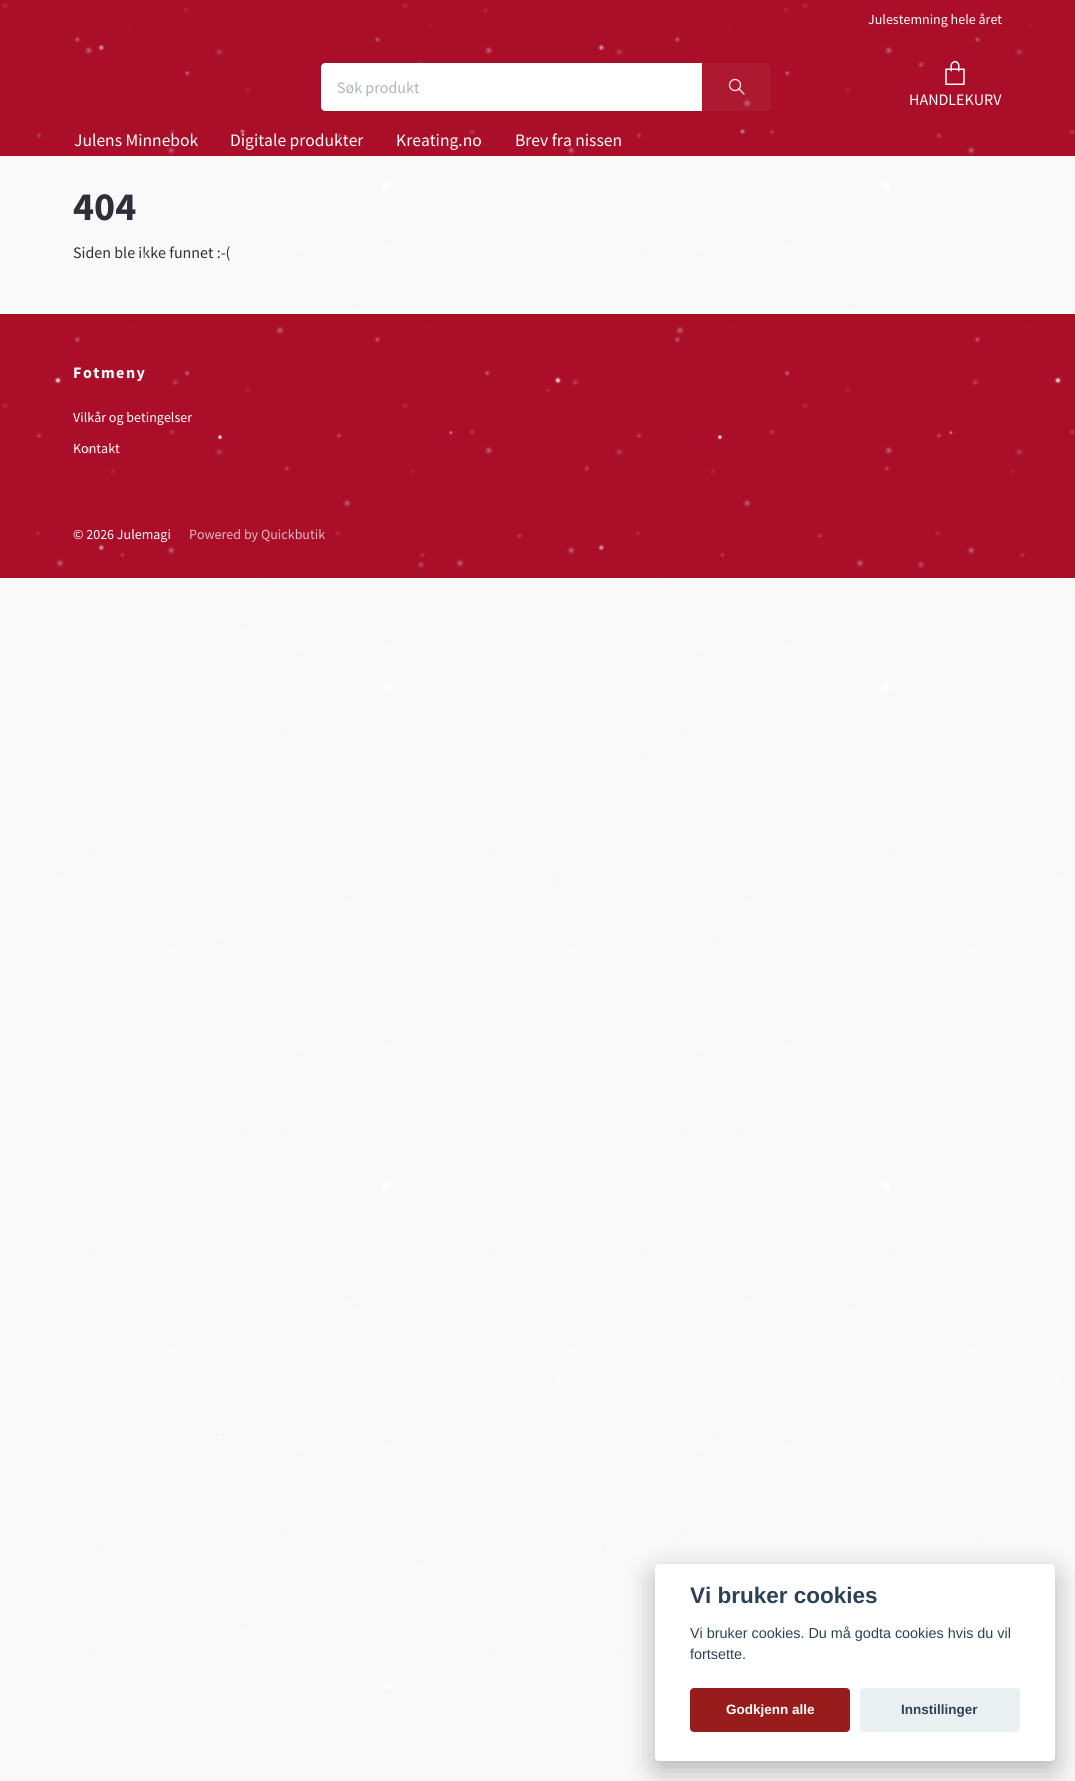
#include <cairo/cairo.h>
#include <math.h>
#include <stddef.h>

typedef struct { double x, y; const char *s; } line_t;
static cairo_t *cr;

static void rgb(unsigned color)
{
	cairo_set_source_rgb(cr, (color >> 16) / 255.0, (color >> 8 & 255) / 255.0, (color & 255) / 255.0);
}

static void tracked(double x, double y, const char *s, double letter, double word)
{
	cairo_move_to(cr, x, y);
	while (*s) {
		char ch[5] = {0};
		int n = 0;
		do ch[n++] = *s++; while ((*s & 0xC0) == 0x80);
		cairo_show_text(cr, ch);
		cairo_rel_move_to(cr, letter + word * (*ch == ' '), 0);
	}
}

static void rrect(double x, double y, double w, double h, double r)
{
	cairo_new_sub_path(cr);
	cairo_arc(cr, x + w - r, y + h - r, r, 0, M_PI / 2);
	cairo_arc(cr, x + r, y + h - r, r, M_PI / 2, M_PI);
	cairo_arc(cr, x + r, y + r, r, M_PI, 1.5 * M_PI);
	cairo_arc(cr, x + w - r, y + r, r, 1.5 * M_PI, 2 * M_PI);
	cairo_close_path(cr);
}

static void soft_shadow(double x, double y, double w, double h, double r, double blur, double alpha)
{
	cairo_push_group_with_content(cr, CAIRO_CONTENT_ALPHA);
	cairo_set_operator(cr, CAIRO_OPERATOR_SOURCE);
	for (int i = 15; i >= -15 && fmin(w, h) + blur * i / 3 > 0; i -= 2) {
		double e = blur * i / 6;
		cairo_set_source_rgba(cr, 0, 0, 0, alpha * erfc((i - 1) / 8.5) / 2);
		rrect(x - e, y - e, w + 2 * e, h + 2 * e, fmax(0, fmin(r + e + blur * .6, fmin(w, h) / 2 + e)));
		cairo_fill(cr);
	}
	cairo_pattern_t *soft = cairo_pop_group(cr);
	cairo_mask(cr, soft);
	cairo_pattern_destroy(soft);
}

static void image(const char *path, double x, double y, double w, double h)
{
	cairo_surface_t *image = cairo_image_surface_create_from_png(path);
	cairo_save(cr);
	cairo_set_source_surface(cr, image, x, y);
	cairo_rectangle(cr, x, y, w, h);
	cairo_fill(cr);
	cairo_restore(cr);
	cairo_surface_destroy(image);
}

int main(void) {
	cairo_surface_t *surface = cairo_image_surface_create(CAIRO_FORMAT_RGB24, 1075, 1781);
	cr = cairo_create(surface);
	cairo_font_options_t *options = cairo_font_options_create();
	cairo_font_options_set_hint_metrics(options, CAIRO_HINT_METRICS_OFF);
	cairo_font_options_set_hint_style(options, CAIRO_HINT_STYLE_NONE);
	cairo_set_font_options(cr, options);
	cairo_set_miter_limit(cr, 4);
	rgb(0xf9f9fa);
	cairo_paint(cr);
	rgb(0xaa0e28);
	cairo_rectangle(cr, 0, 0, 1075, 156);
	cairo_fill(cr);
	rrect(320.5, 62.5, 451, 49, 4.5);
	rgb(0xa01028);
	cairo_set_line_width(cr, 1);
	cairo_stroke(cr);
	rgb(0xffffff);
	cairo_new_path(cr);
	cairo_move_to(cr, 325, 63);
	cairo_line_to(cr, 702, 63);
	cairo_line_to(cr, 702, 111);
	cairo_line_to(cr, 325, 111);
	cairo_curve_to(cr, 323, 111, 321, 109, 321, 107);
	cairo_line_to(cr, 321, 67);
	cairo_curve_to(cr, 321, 65, 323, 63, 325, 63);
	cairo_close_path(cr);
	cairo_fill(cr);
	rgb(0xae1932);
	cairo_new_path(cr);
	cairo_move_to(cr, 702, 63);
	cairo_line_to(cr, 766, 63);
	cairo_curve_to(cr, 769, 63, 771, 65, 771, 68);
	cairo_line_to(cr, 771, 106);
	cairo_curve_to(cr, 771, 109, 769, 111, 766, 111);
	cairo_line_to(cr, 702, 111);
	cairo_close_path(cr);
	cairo_fill(cr);
	cairo_new_path(cr);
	cairo_move_to(cr, 738.5, 88.5);
	cairo_line_to(cr, 744, 94);
	rgb(0xf7e7ea);
	cairo_set_line_width(cr, 1.3);
	cairo_set_line_cap(cr, CAIRO_LINE_CAP_ROUND);
	cairo_set_line_join(cr, CAIRO_LINE_JOIN_ROUND);
	cairo_stroke(cr);
	cairo_arc(cr, 735, 85, 5.5, 0, 2 * M_PI);
	cairo_set_line_cap(cr, CAIRO_LINE_CAP_BUTT);
	cairo_set_line_join(cr, CAIRO_LINE_JOIN_MITER);
	cairo_stroke(cr);
	image("img/2.png", 945, 61, 20, 24);
	rgb(0xaa0e28);
	cairo_rectangle(cr, 0, 314, 1075, 264);
	cairo_fill(cr);
	cairo_select_font_face(cr, "Source Sans Pro", CAIRO_FONT_SLANT_NORMAL, CAIRO_FONT_WEIGHT_NORMAL);
	cairo_set_font_size(cr, 14);
	rgb(0xffffff);
	cairo_move_to(cr, 868, 24);
	cairo_show_text(cr, "Julestemning hele året");
	cairo_set_font_size(cr, 16);
	rgb(0xadb5bd);
	cairo_move_to(cr, 337, 93);
	cairo_show_text(cr, "Søk produkt");
	rgb(0xffffff);
	cairo_move_to(cr, 909, 105);
	cairo_show_text(cr, "HANDLEKURV");
	cairo_set_font_size(cr, 17.5);
	{
		static const line_t items[] = {
			{74, 146, "Julens Minnebok"},
			{230, 146, "Digitale produkter"},
			{396, 146, "Kreating.no"},
			{515, 146, "Brev fra nissen"},
		};
		for (size_t i = 0; i < sizeof items / sizeof *items; i++) {
			cairo_move_to(cr, items[i].x, items[i].y);
			cairo_show_text(cr, items[i].s);
		}
	}
	cairo_select_font_face(cr, "Source Sans Pro", CAIRO_FONT_SLANT_NORMAL, CAIRO_FONT_WEIGHT_BOLD);
	cairo_set_font_size(cr, 40);
	rgb(0x2e3038);
	cairo_move_to(cr, 73, 220);
	cairo_show_text(cr, "404");
	cairo_select_font_face(cr, "Source Sans Pro", CAIRO_FONT_SLANT_NORMAL, CAIRO_FONT_WEIGHT_NORMAL);
	cairo_set_font_size(cr, 16);
	cairo_move_to(cr, 73, 258);
	cairo_show_text(cr, "Siden ble ikke funnet :-(");
	cairo_select_font_face(cr, "Source Sans Pro", CAIRO_FONT_SLANT_NORMAL, CAIRO_FONT_WEIGHT_BOLD);
	rgb(0xffffff);
	tracked(73, 378, "Fotmeny", 1.5, 0);
	cairo_select_font_face(cr, "Source Sans Pro", CAIRO_FONT_SLANT_NORMAL, CAIRO_FONT_WEIGHT_NORMAL);
	cairo_set_font_size(cr, 14);
	{
		static const line_t items[] = {
			{73, 422, "Vilkår og betingelser"},
			{73, 453, "Kontakt"},
			{73, 539, "© 2026 Julemagi"},
		};
		for (size_t i = 0; i < sizeof items / sizeof *items; i++) {
			cairo_move_to(cr, items[i].x, items[i].y);
			cairo_show_text(cr, items[i].s);
		}
	}
	rgb(0xe6b7bf);
	cairo_move_to(cr, 189, 539);
	cairo_show_text(cr, "Powered by Quickbutik");
	image("img/1.png", 1, 2, 1074, 1687);
	rgb(0x020203);
	soft_shadow(655, 1574, 400, 197, 4, 15, 0.28);
	rgb(0xffffff);
	rrect(655, 1564, 400, 197, 4);
	cairo_fill(cr);
	cairo_select_font_face(cr, "Liberation Sans", CAIRO_FONT_SLANT_NORMAL, CAIRO_FONT_WEIGHT_BOLD);
	cairo_set_font_size(cr, 22.5);
	rgb(0x2d4156);
	cairo_move_to(cr, 690, 1603);
	cairo_show_text(cr, "Vi bruker cookies");
	cairo_select_font_face(cr, "Liberation Sans", CAIRO_FONT_SLANT_NORMAL, CAIRO_FONT_WEIGHT_NORMAL);
	cairo_set_font_size(cr, 14.4);
	cairo_move_to(cr, 690, 1638);
	cairo_show_text(cr, "Vi bruker cookies. Du må godta cookies hvis du vil");
	cairo_move_to(cr, 690, 1659);
	cairo_show_text(cr, "fortsette.");
	rgb(0x991c1c);
	rrect(690, 1688, 160, 44, 4);
	cairo_fill(cr);
	cairo_select_font_face(cr, "Liberation Sans", CAIRO_FONT_SLANT_NORMAL, CAIRO_FONT_WEIGHT_BOLD);
	cairo_set_font_size(cr, 13.5);
	rgb(0xffffff);
	cairo_move_to(cr, 726, 1714);
	cairo_show_text(cr, "Godkjenn alle");
	rgb(0xeaeff2);
	rrect(860, 1688, 160, 44, 4);
	cairo_fill(cr);
	rgb(0x2d4156);
	cairo_move_to(cr, 901, 1714);
	cairo_show_text(cr, "Innstillinger");
	cairo_surface_write_to_png(surface, "page.png");
	cairo_font_options_destroy(options);
	cairo_destroy(cr);
	cairo_surface_destroy(surface);
	return 0;
}
